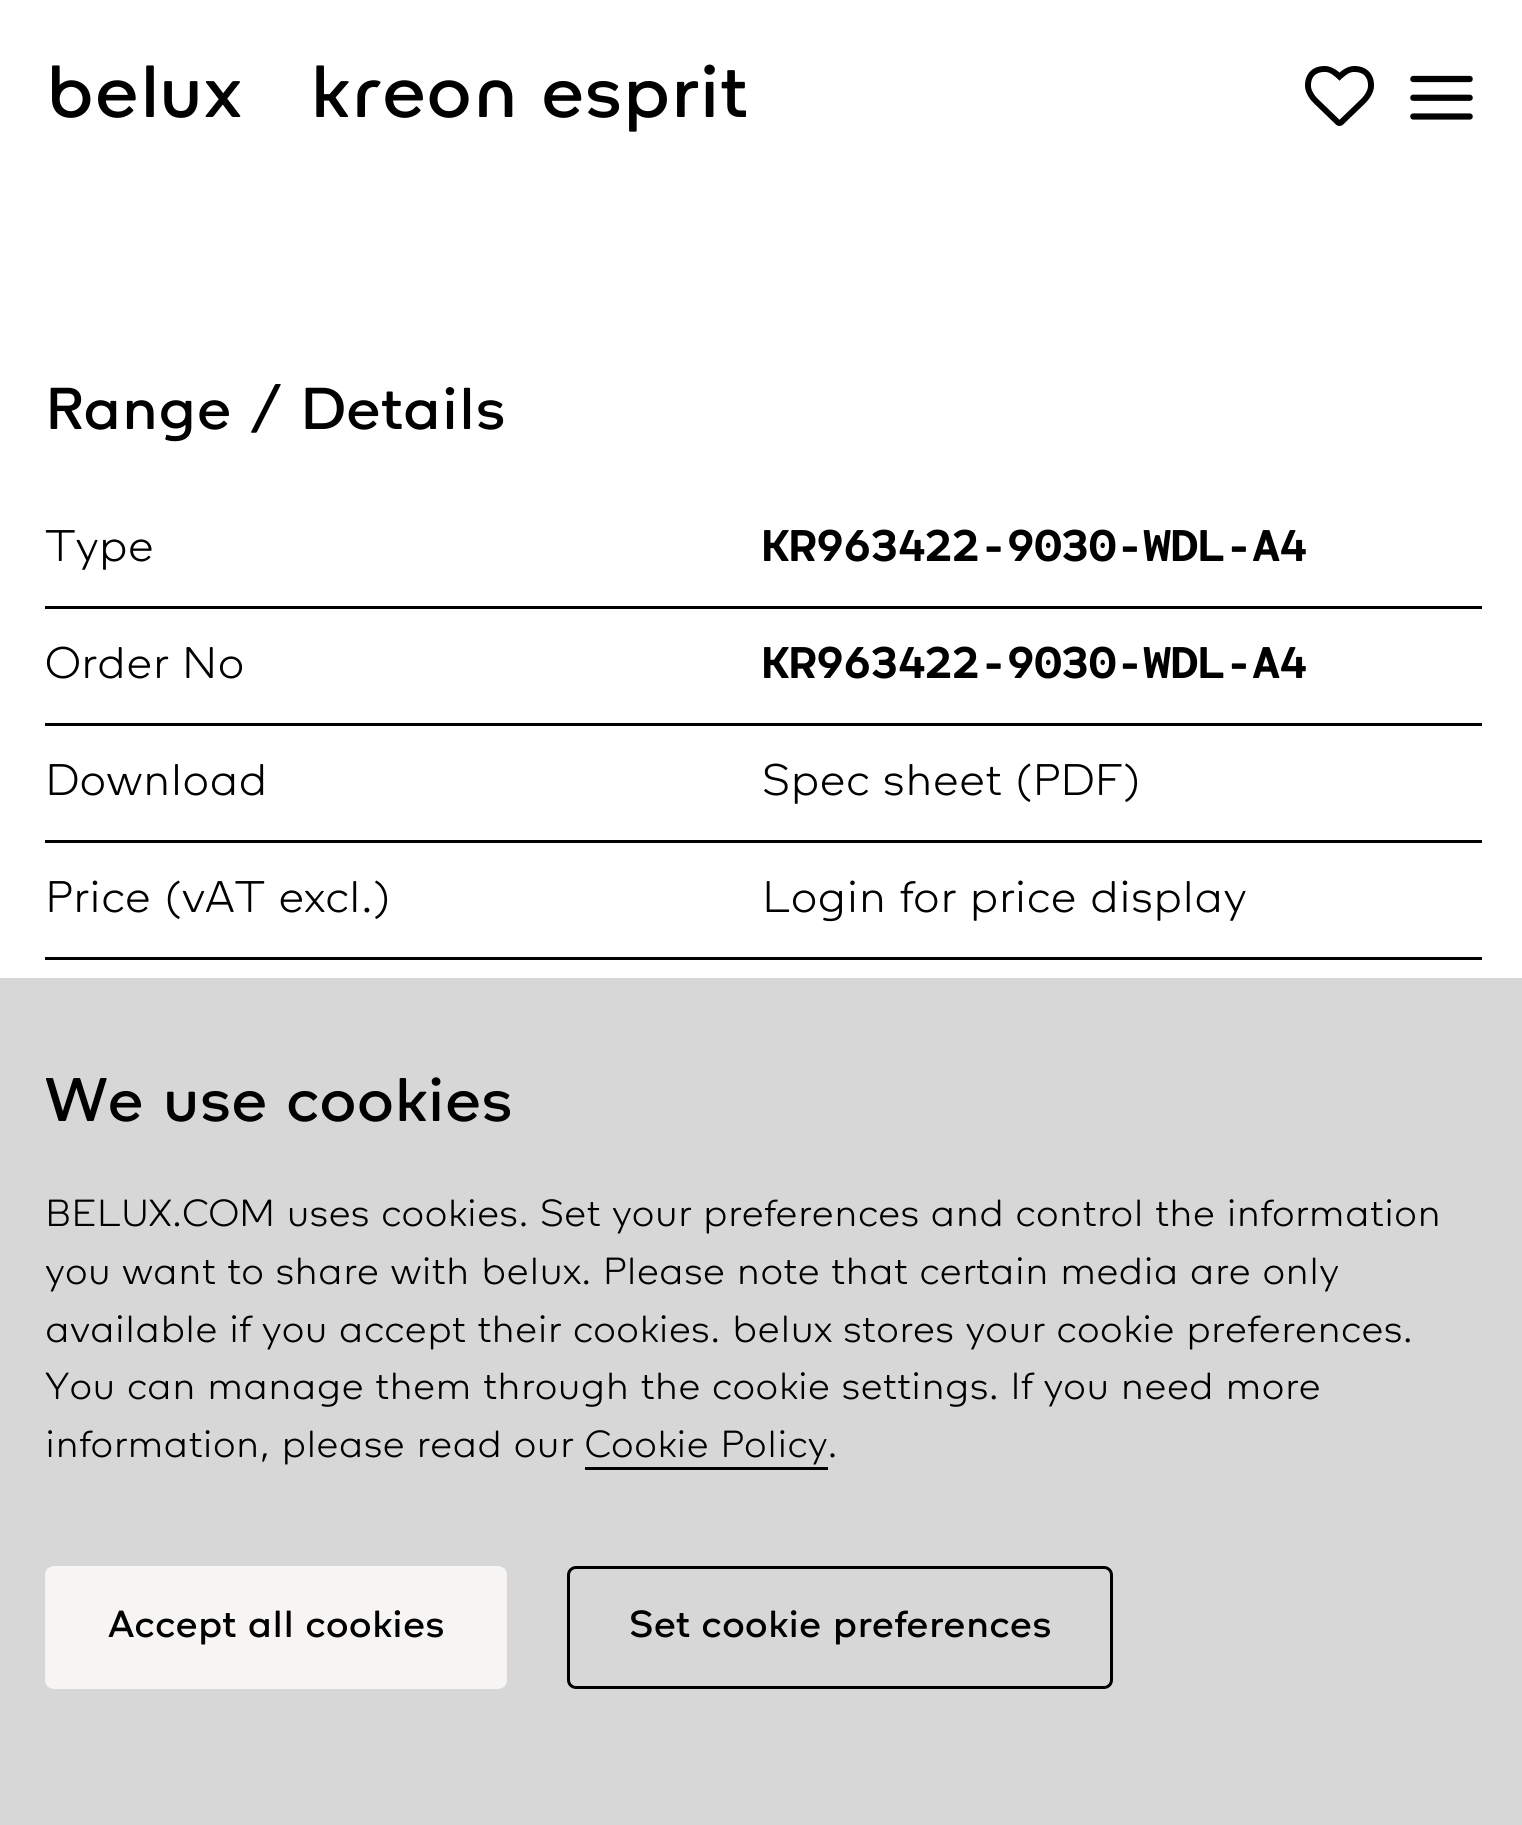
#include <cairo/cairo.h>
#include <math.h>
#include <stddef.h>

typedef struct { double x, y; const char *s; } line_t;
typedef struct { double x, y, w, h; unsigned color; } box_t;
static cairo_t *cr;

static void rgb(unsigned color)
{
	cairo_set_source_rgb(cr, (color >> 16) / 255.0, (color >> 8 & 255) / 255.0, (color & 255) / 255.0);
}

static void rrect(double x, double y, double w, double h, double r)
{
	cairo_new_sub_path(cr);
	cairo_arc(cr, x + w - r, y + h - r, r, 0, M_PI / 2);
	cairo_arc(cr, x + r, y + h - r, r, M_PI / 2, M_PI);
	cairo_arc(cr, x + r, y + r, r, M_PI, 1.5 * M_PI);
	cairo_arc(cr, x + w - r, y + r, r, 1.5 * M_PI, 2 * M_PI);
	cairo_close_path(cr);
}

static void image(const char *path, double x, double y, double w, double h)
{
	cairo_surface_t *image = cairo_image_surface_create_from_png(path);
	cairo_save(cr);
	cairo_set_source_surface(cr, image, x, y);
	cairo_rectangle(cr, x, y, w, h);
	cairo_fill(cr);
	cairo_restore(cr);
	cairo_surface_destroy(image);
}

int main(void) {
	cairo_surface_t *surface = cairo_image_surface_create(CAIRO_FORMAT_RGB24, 1522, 1825);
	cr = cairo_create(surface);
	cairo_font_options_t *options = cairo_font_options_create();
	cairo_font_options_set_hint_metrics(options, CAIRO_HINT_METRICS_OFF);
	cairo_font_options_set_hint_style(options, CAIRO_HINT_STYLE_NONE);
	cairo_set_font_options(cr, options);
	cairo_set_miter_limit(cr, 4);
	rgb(0xffffff);
	cairo_paint(cr);
	image("img/1.png", 1305, 66, 69, 60);
	image("img/2.png", 1410, 75, 63, 45);
	{
		static const box_t items[] = {
			{45, 606, 1437, 3, 0x000000},
			{45, 723, 1437, 3, 0x000000},
			{45, 840, 1437, 3, 0x000000},
			{45, 957, 1437, 3, 0x000000},
			{0, 978, 1522, 847, 0xd6d7d6},
			{585, 1467, 243, 3, 0x000000},
		};
		for (size_t i = 0; i < sizeof items / sizeof *items; i++) {
			rgb(items[i].color);
			cairo_rectangle(cr, items[i].x, items[i].y, items[i].w, items[i].h);
			cairo_fill(cr);
		}
	}
	rgb(0xf7f5f3);
	rrect(46.5, 1567.5, 459, 120, 7.5);
	cairo_fill_preserve(cr);
	cairo_set_line_width(cr, 3);
	cairo_stroke(cr);
	rrect(568.5, 1567.5, 543, 120, 7.5);
	rgb(0x000000);
	cairo_stroke(cr);
	cairo_select_font_face(cr, "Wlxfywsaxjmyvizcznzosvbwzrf", CAIRO_FONT_SLANT_NORMAL, CAIRO_FONT_WEIGHT_NORMAL);
	cairo_set_font_size(cr, 75);
	cairo_move_to(cr, 45, 117);
	cairo_show_text(cr, "belux");
	cairo_move_to(cr, 308, 117);
	cairo_show_text(cr, "kreon");
	cairo_select_font_face(cr, "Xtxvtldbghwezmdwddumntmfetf", CAIRO_FONT_SLANT_NORMAL, CAIRO_FONT_WEIGHT_NORMAL);
	cairo_move_to(cr, 541, 117);
	cairo_show_text(cr, "esprit");
	cairo_set_font_size(cr, 60);
	cairo_move_to(cr, 45, 429);
	cairo_show_text(cr, "Range / Details");
	cairo_select_font_face(cr, "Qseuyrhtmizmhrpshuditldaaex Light", CAIRO_FONT_SLANT_NORMAL, CAIRO_FONT_WEIGHT_NORMAL);
	cairo_set_font_size(cr, 45);
	cairo_move_to(cr, 45, 561);
	cairo_show_text(cr, "Type");
	cairo_select_font_face(cr, "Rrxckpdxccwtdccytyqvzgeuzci", CAIRO_FONT_SLANT_NORMAL, CAIRO_FONT_WEIGHT_BOLD);
	cairo_move_to(cr, 762, 561);
	cairo_show_text(cr, "KR963422-9030-WDL-A4");
	cairo_select_font_face(cr, "Qseuyrhtmizmhrpshuditldaaex Light", CAIRO_FONT_SLANT_NORMAL, CAIRO_FONT_WEIGHT_NORMAL);
	cairo_move_to(cr, 45, 678);
	cairo_show_text(cr, "Order No");
	cairo_select_font_face(cr, "Rrxckpdxccwtdccytyqvzgeuzci", CAIRO_FONT_SLANT_NORMAL, CAIRO_FONT_WEIGHT_BOLD);
	cairo_move_to(cr, 762, 678);
	cairo_show_text(cr, "KR963422-9030-WDL-A4");
	cairo_select_font_face(cr, "Qseuyrhtmizmhrpshuditldaaex Light", CAIRO_FONT_SLANT_NORMAL, CAIRO_FONT_WEIGHT_NORMAL);
	{
		static const line_t items[] = {
			{45, 795, "Download"},
			{762, 795, "Spec sheet (PDF)"},
			{45, 912, "Price (vAT excl.)"},
			{762, 912, "Login for price display"},
		};
		for (size_t i = 0; i < sizeof items / sizeof *items; i++) {
			cairo_move_to(cr, items[i].x, items[i].y);
			cairo_show_text(cr, items[i].s);
		}
	}
	cairo_select_font_face(cr, "Xtxvtldbghwezmdwddumntmfetf", CAIRO_FONT_SLANT_NORMAL, CAIRO_FONT_WEIGHT_NORMAL);
	cairo_set_font_size(cr, 62.5);
	cairo_move_to(cr, 45, 1121);
	cairo_show_text(cr, "We use cookies");
	cairo_select_font_face(cr, "Qseuyrhtmizmhrpshuditldaaex Light", CAIRO_FONT_SLANT_NORMAL, CAIRO_FONT_WEIGHT_NORMAL);
	cairo_set_font_size(cr, 38.4);
	cairo_move_to(cr, 45, 1226);
	cairo_show_text(cr, "BELUX.COM uses cookies. Set your preferences and control the information");
	cairo_move_to(cr, 45, 1284);
	cairo_show_text(cr, "you want to share with");
	cairo_select_font_face(cr, "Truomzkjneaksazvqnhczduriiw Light", CAIRO_FONT_SLANT_NORMAL, CAIRO_FONT_WEIGHT_NORMAL);
	cairo_move_to(cr, 481, 1284);
	cairo_show_text(cr, "belux");
	cairo_select_font_face(cr, "Qseuyrhtmizmhrpshuditldaaex Light", CAIRO_FONT_SLANT_NORMAL, CAIRO_FONT_WEIGHT_NORMAL);
	cairo_move_to(cr, 581, 1284);
	cairo_show_text(cr, ". Please note that certain media are only");
	cairo_move_to(cr, 45, 1342);
	cairo_show_text(cr, "available if you accept their cookies.");
	cairo_select_font_face(cr, "Truomzkjneaksazvqnhczduriiw Light", CAIRO_FONT_SLANT_NORMAL, CAIRO_FONT_WEIGHT_NORMAL);
	cairo_move_to(cr, 732, 1342);
	cairo_show_text(cr, "belux");
	cairo_select_font_face(cr, "Qseuyrhtmizmhrpshuditldaaex Light", CAIRO_FONT_SLANT_NORMAL, CAIRO_FONT_WEIGHT_NORMAL);
	{
		static const line_t items[] = {
			{843, 1342, "stores your cookie preferences."},
			{45, 1399, "You can manage them through the cookie settings. If you need more"},
			{45, 1457, "information, please read our Cookie Policy."},
		};
		for (size_t i = 0; i < sizeof items / sizeof *items; i++) {
			cairo_move_to(cr, items[i].x, items[i].y);
			cairo_show_text(cr, items[i].s);
		}
	}
	cairo_select_font_face(cr, "Xtxvtldbghwezmdwddumntmfetf", CAIRO_FONT_SLANT_NORMAL, CAIRO_FONT_WEIGHT_NORMAL);
	cairo_move_to(cr, 108, 1637);
	cairo_show_text(cr, "Accept all cookies");
	cairo_move_to(cr, 629, 1637);
	cairo_show_text(cr, "Set cookie preferences");
	cairo_surface_write_to_png(surface, "page.png");
	cairo_font_options_destroy(options);
	cairo_destroy(cr);
	cairo_surface_destroy(surface);
	return 0;
}
